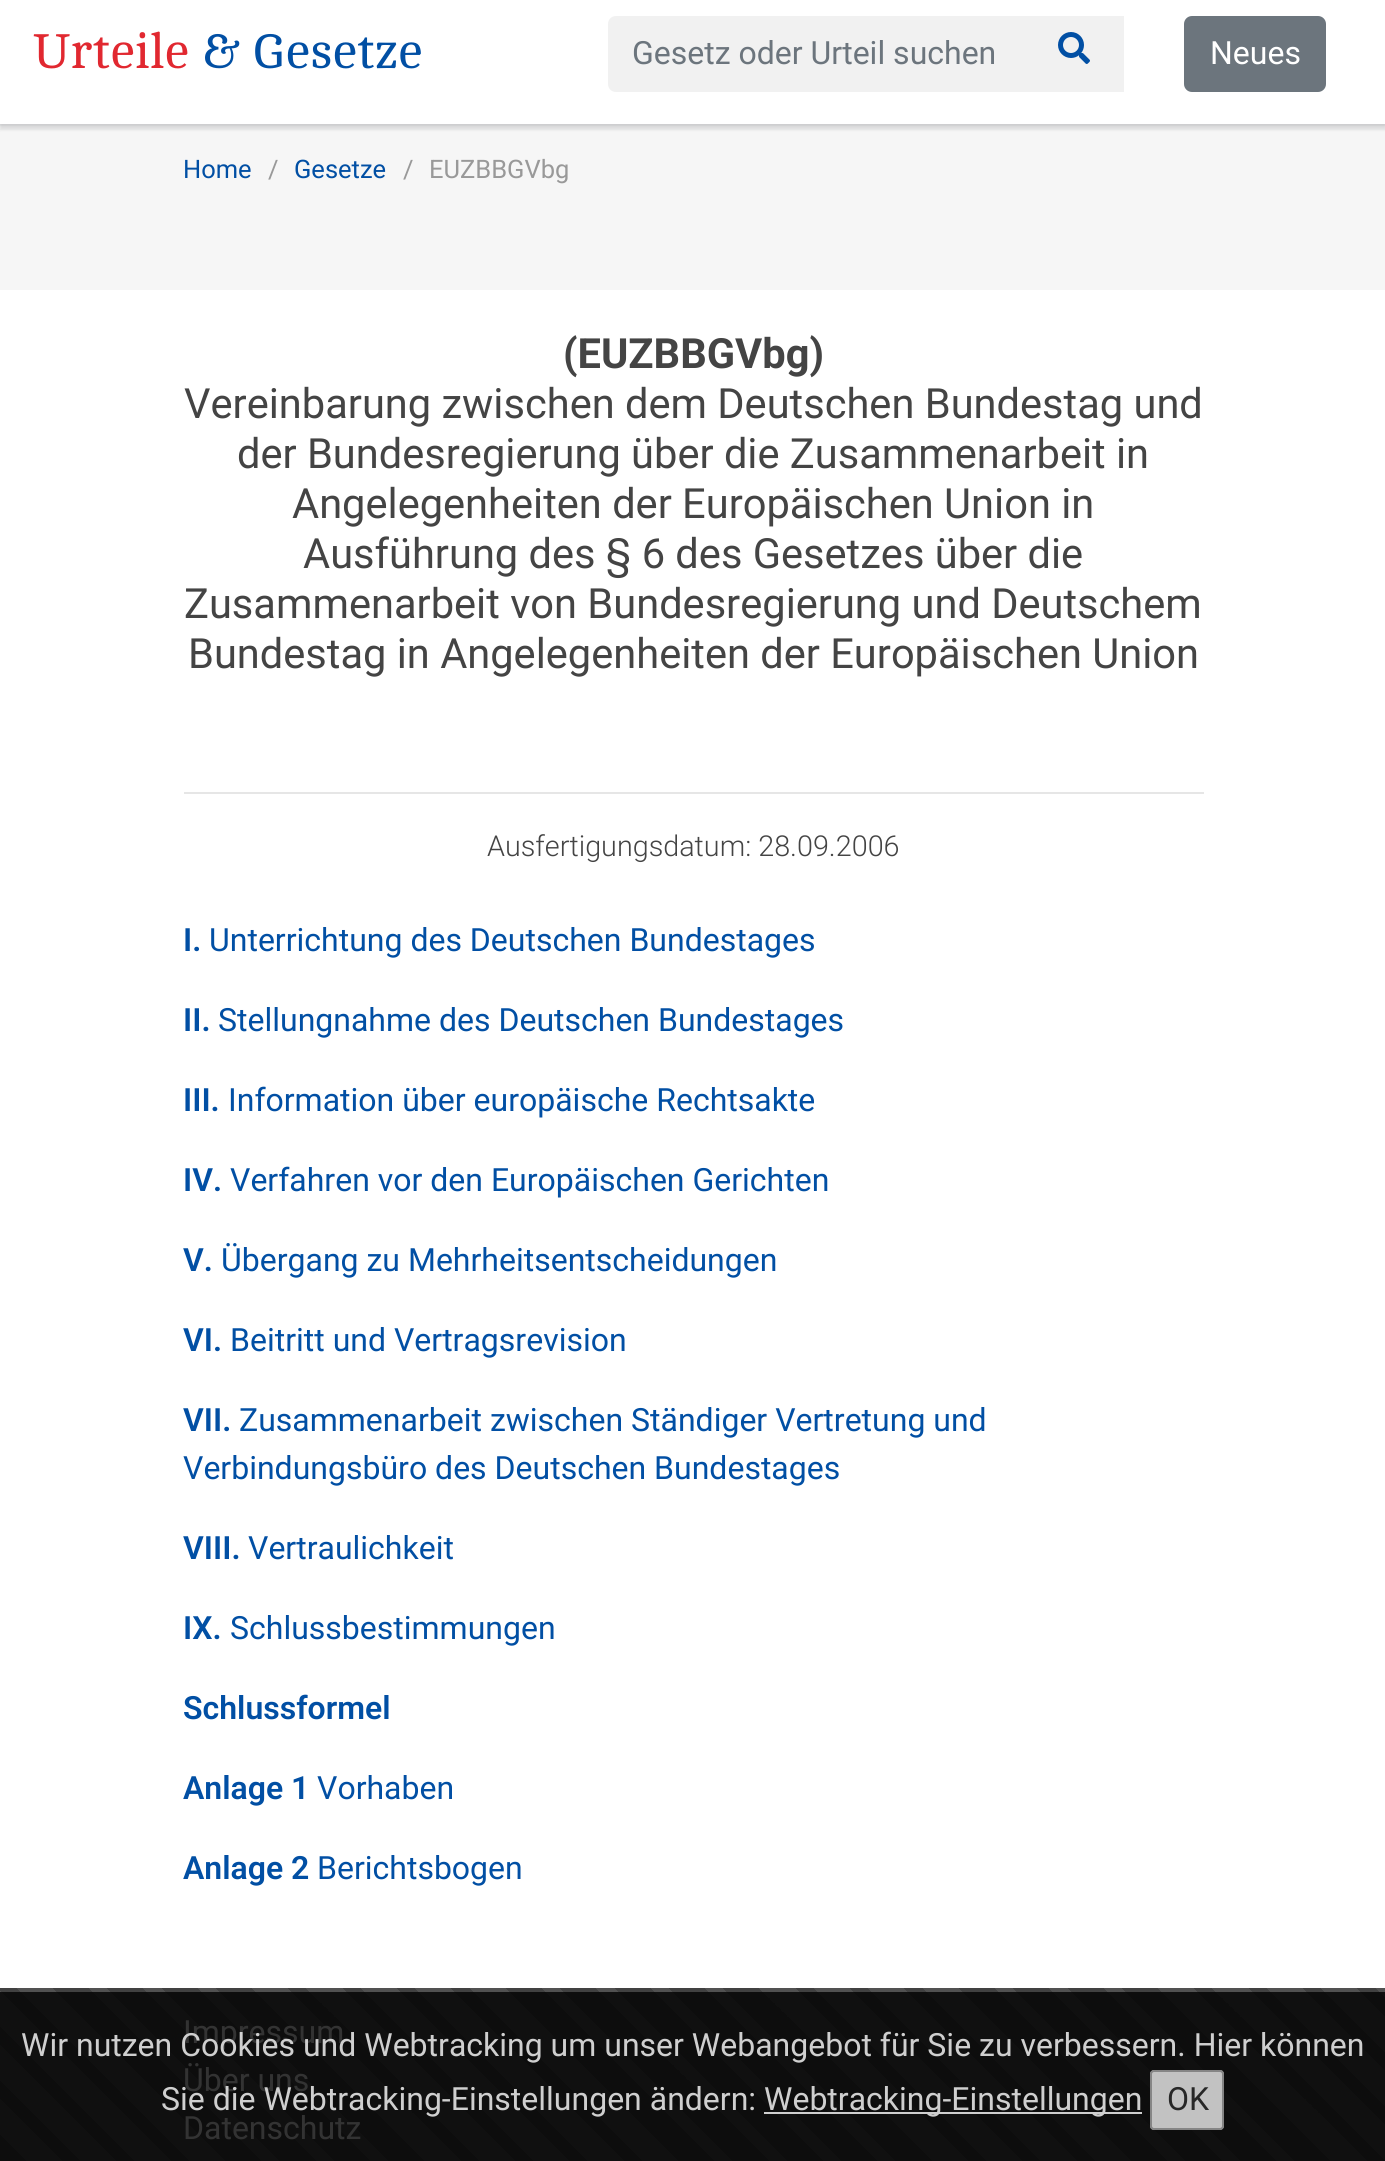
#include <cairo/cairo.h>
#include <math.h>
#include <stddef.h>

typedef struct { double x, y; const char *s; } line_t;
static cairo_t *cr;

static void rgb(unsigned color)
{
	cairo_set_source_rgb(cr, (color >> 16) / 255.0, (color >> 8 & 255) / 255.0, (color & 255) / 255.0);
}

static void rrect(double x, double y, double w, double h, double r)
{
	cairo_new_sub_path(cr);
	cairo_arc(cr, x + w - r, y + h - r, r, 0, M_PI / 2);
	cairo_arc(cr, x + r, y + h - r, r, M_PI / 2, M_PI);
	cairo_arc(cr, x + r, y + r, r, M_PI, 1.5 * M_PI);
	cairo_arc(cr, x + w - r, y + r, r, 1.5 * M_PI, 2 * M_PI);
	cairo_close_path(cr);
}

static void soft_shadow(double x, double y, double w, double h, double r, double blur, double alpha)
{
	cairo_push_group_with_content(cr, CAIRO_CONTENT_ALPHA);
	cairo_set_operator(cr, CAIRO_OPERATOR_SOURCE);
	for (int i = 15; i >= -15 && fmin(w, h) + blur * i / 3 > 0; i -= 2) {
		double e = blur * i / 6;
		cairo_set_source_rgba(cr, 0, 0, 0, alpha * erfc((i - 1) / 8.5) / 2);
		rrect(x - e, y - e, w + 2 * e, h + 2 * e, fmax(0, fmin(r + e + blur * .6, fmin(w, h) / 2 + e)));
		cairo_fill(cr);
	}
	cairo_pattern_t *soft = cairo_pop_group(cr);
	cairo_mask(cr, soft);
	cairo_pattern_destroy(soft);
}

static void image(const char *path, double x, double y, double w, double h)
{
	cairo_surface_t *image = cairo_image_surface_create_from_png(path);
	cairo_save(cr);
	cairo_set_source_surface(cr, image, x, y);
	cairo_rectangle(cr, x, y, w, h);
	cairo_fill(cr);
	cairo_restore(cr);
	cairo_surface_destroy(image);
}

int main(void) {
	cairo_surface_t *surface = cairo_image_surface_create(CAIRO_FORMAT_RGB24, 1385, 2161);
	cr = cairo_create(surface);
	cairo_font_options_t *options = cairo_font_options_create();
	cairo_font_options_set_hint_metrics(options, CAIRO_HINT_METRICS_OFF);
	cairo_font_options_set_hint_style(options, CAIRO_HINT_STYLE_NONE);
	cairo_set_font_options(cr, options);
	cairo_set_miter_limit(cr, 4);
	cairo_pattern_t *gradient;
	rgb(0xf6f6f6);
	cairo_paint(cr);
	rgb(0x14171c);
	soft_shadow(0, 6, 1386, 124, 0, 1, 0.1);
	soft_shadow(-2, -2, 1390, 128, 0, 1, 0.1);
	rgb(0xffffff);
	cairo_rectangle(cr, 0, 0, 1385, 124);
	cairo_fill(cr);
	rgb(0xf1f1f1);
	cairo_new_path(cr);
	cairo_move_to(cr, 616, 16);
	cairo_line_to(cr, 1024, 16);
	cairo_line_to(cr, 1024, 92);
	cairo_line_to(cr, 616, 92);
	cairo_curve_to(cr, 611.5, 92, 608, 88.5, 608, 84);
	cairo_line_to(cr, 608, 24);
	cairo_curve_to(cr, 608, 19.5, 611.5, 16, 616, 16);
	cairo_close_path(cr);
	cairo_fill(cr);
	cairo_rectangle(cr, 1024, 16, 100, 76);
	cairo_fill(cr);
	image("img/1.png", 1058, 32, 32, 32);
	rgb(0x6c757d);
	rrect(1184, 16, 142, 76, 8);
	cairo_fill(cr);
	rgb(0xffffff);
	cairo_rectangle(cr, 0, 290, 1385, 1698);
	cairo_fill(cr);
	rgb(0xe6e6e6);
	cairo_rectangle(cr, 184, 792, 1020, 2);
	cairo_fill(cr);
	gradient = cairo_pattern_create_linear(247, 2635, 1152, 1729);
	cairo_pattern_add_color_stop_rgba(gradient, 0, 0.255, 0.255, 0.255, 1);
	cairo_pattern_add_color_stop_rgba(gradient, 0.02, 0.255, 0.255, 0.255, 1);
	cairo_pattern_add_color_stop_rgba(gradient, 0.02, 0.318, 0.318, 0.318, 1);
	cairo_pattern_add_color_stop_rgba(gradient, 0.03, 0.318, 0.318, 0.318, 1);
	cairo_pattern_add_color_stop_rgba(gradient, 0.03, 0.255, 0.255, 0.255, 1);
	cairo_pattern_add_color_stop_rgba(gradient, 0.05, 0.255, 0.255, 0.255, 1);
	cairo_pattern_add_color_stop_rgba(gradient, 0.05, 0.318, 0.318, 0.318, 1);
	cairo_pattern_add_color_stop_rgba(gradient, 0.06, 0.318, 0.318, 0.318, 1);
	cairo_pattern_add_color_stop_rgba(gradient, 0.06, 0.255, 0.255, 0.255, 1);
	cairo_pattern_add_color_stop_rgba(gradient, 0.08, 0.255, 0.255, 0.255, 1);
	cairo_pattern_add_color_stop_rgba(gradient, 0.08, 0.318, 0.318, 0.318, 1);
	cairo_pattern_add_color_stop_rgba(gradient, 0.09, 0.318, 0.318, 0.318, 1);
	cairo_pattern_add_color_stop_rgba(gradient, 0.09, 0.255, 0.255, 0.255, 1);
	cairo_pattern_add_color_stop_rgba(gradient, 0.11, 0.255, 0.255, 0.255, 1);
	cairo_pattern_add_color_stop_rgba(gradient, 0.11, 0.318, 0.318, 0.318, 1);
	cairo_pattern_add_color_stop_rgba(gradient, 0.12, 0.318, 0.318, 0.318, 1);
	cairo_pattern_add_color_stop_rgba(gradient, 0.12, 0.255, 0.255, 0.255, 1);
	cairo_pattern_add_color_stop_rgba(gradient, 0.14, 0.255, 0.255, 0.255, 1);
	cairo_pattern_add_color_stop_rgba(gradient, 0.14, 0.318, 0.318, 0.318, 1);
	cairo_pattern_add_color_stop_rgba(gradient, 0.16, 0.318, 0.318, 0.318, 1);
	cairo_pattern_add_color_stop_rgba(gradient, 0.16, 0.255, 0.255, 0.255, 1);
	cairo_pattern_add_color_stop_rgba(gradient, 0.17, 0.255, 0.255, 0.255, 1);
	cairo_pattern_add_color_stop_rgba(gradient, 0.17, 0.318, 0.318, 0.318, 1);
	cairo_pattern_add_color_stop_rgba(gradient, 0.19, 0.318, 0.318, 0.318, 1);
	cairo_pattern_add_color_stop_rgba(gradient, 0.19, 0.255, 0.255, 0.255, 1);
	cairo_pattern_add_color_stop_rgba(gradient, 0.2, 0.255, 0.255, 0.255, 1);
	cairo_pattern_add_color_stop_rgba(gradient, 0.2, 0.318, 0.318, 0.318, 1);
	cairo_pattern_add_color_stop_rgba(gradient, 0.22, 0.318, 0.318, 0.318, 1);
	cairo_pattern_add_color_stop_rgba(gradient, 0.22, 0.255, 0.255, 0.255, 1);
	cairo_pattern_add_color_stop_rgba(gradient, 0.23, 0.255, 0.255, 0.255, 1);
	cairo_pattern_add_color_stop_rgba(gradient, 0.23, 0.318, 0.318, 0.318, 1);
	cairo_pattern_add_color_stop_rgba(gradient, 0.25, 0.318, 0.318, 0.318, 1);
	cairo_pattern_add_color_stop_rgba(gradient, 0.25, 0.255, 0.255, 0.255, 1);
	cairo_pattern_add_color_stop_rgba(gradient, 0.27, 0.255, 0.255, 0.255, 1);
	cairo_pattern_add_color_stop_rgba(gradient, 0.27, 0.318, 0.318, 0.318, 1);
	cairo_pattern_add_color_stop_rgba(gradient, 0.28, 0.318, 0.318, 0.318, 1);
	cairo_pattern_add_color_stop_rgba(gradient, 0.28, 0.255, 0.255, 0.255, 1);
	cairo_pattern_add_color_stop_rgba(gradient, 0.3, 0.255, 0.255, 0.255, 1);
	cairo_pattern_add_color_stop_rgba(gradient, 0.3, 0.318, 0.318, 0.318, 1);
	cairo_pattern_add_color_stop_rgba(gradient, 0.31, 0.318, 0.318, 0.318, 1);
	cairo_pattern_add_color_stop_rgba(gradient, 0.31, 0.255, 0.255, 0.255, 1);
	cairo_pattern_add_color_stop_rgba(gradient, 0.33, 0.255, 0.255, 0.255, 1);
	cairo_pattern_add_color_stop_rgba(gradient, 0.33, 0.318, 0.318, 0.318, 1);
	cairo_pattern_add_color_stop_rgba(gradient, 0.34, 0.318, 0.318, 0.318, 1);
	cairo_pattern_add_color_stop_rgba(gradient, 0.34, 0.255, 0.255, 0.255, 1);
	cairo_pattern_add_color_stop_rgba(gradient, 0.36, 0.255, 0.255, 0.255, 1);
	cairo_pattern_add_color_stop_rgba(gradient, 0.36, 0.318, 0.318, 0.318, 1);
	cairo_pattern_add_color_stop_rgba(gradient, 0.38, 0.318, 0.318, 0.318, 1);
	cairo_pattern_add_color_stop_rgba(gradient, 0.38, 0.255, 0.255, 0.255, 1);
	cairo_pattern_add_color_stop_rgba(gradient, 0.39, 0.255, 0.255, 0.255, 1);
	cairo_pattern_add_color_stop_rgba(gradient, 0.39, 0.318, 0.318, 0.318, 1);
	cairo_pattern_add_color_stop_rgba(gradient, 0.41, 0.318, 0.318, 0.318, 1);
	cairo_pattern_add_color_stop_rgba(gradient, 0.41, 0.255, 0.255, 0.255, 1);
	cairo_pattern_add_color_stop_rgba(gradient, 0.42, 0.255, 0.255, 0.255, 1);
	cairo_pattern_add_color_stop_rgba(gradient, 0.42, 0.318, 0.318, 0.318, 1);
	cairo_pattern_add_color_stop_rgba(gradient, 0.44, 0.318, 0.318, 0.318, 1);
	cairo_pattern_add_color_stop_rgba(gradient, 0.44, 0.255, 0.255, 0.255, 1);
	cairo_pattern_add_color_stop_rgba(gradient, 0.45, 0.255, 0.255, 0.255, 1);
	cairo_pattern_add_color_stop_rgba(gradient, 0.45, 0.318, 0.318, 0.318, 1);
	cairo_pattern_add_color_stop_rgba(gradient, 0.47, 0.318, 0.318, 0.318, 1);
	cairo_pattern_add_color_stop_rgba(gradient, 0.47, 0.255, 0.255, 0.255, 1);
	cairo_pattern_add_color_stop_rgba(gradient, 0.48, 0.255, 0.255, 0.255, 1);
	cairo_pattern_add_color_stop_rgba(gradient, 0.48, 0.318, 0.318, 0.318, 1);
	cairo_pattern_add_color_stop_rgba(gradient, 0.5, 0.318, 0.318, 0.318, 1);
	cairo_pattern_add_color_stop_rgba(gradient, 0.5, 0.255, 0.255, 0.255, 1);
	cairo_pattern_add_color_stop_rgba(gradient, 0.52, 0.255, 0.255, 0.255, 1);
	cairo_pattern_add_color_stop_rgba(gradient, 0.52, 0.318, 0.318, 0.318, 1);
	cairo_pattern_add_color_stop_rgba(gradient, 0.53, 0.318, 0.318, 0.318, 1);
	cairo_pattern_add_color_stop_rgba(gradient, 0.53, 0.255, 0.255, 0.255, 1);
	cairo_pattern_add_color_stop_rgba(gradient, 0.55, 0.255, 0.255, 0.255, 1);
	cairo_pattern_add_color_stop_rgba(gradient, 0.55, 0.318, 0.318, 0.318, 1);
	cairo_pattern_add_color_stop_rgba(gradient, 0.56, 0.318, 0.318, 0.318, 1);
	cairo_pattern_add_color_stop_rgba(gradient, 0.56, 0.255, 0.255, 0.255, 1);
	cairo_pattern_add_color_stop_rgba(gradient, 0.58, 0.255, 0.255, 0.255, 1);
	cairo_pattern_add_color_stop_rgba(gradient, 0.58, 0.318, 0.318, 0.318, 1);
	cairo_pattern_add_color_stop_rgba(gradient, 0.59, 0.318, 0.318, 0.318, 1);
	cairo_pattern_add_color_stop_rgba(gradient, 0.59, 0.255, 0.255, 0.255, 1);
	cairo_pattern_add_color_stop_rgba(gradient, 0.61, 0.255, 0.255, 0.255, 1);
	cairo_pattern_add_color_stop_rgba(gradient, 0.61, 0.318, 0.318, 0.318, 1);
	cairo_pattern_add_color_stop_rgba(gradient, 0.62, 0.318, 0.318, 0.318, 1);
	cairo_pattern_add_color_stop_rgba(gradient, 0.62, 0.255, 0.255, 0.255, 1);
	cairo_pattern_add_color_stop_rgba(gradient, 0.64, 0.255, 0.255, 0.255, 1);
	cairo_pattern_add_color_stop_rgba(gradient, 0.64, 0.318, 0.318, 0.318, 1);
	cairo_pattern_add_color_stop_rgba(gradient, 0.66, 0.318, 0.318, 0.318, 1);
	cairo_pattern_add_color_stop_rgba(gradient, 0.66, 0.255, 0.255, 0.255, 1);
	cairo_pattern_add_color_stop_rgba(gradient, 0.67, 0.255, 0.255, 0.255, 1);
	cairo_pattern_add_color_stop_rgba(gradient, 0.67, 0.318, 0.318, 0.318, 1);
	cairo_pattern_add_color_stop_rgba(gradient, 0.69, 0.318, 0.318, 0.318, 1);
	cairo_pattern_add_color_stop_rgba(gradient, 0.69, 0.255, 0.255, 0.255, 1);
	cairo_pattern_add_color_stop_rgba(gradient, 0.7, 0.255, 0.255, 0.255, 1);
	cairo_pattern_add_color_stop_rgba(gradient, 0.7, 0.318, 0.318, 0.318, 1);
	cairo_pattern_add_color_stop_rgba(gradient, 0.72, 0.318, 0.318, 0.318, 1);
	cairo_pattern_add_color_stop_rgba(gradient, 0.72, 0.255, 0.255, 0.255, 1);
	cairo_pattern_add_color_stop_rgba(gradient, 0.73, 0.255, 0.255, 0.255, 1);
	cairo_pattern_add_color_stop_rgba(gradient, 0.73, 0.318, 0.318, 0.318, 1);
	cairo_pattern_add_color_stop_rgba(gradient, 0.75, 0.318, 0.318, 0.318, 1);
	cairo_pattern_add_color_stop_rgba(gradient, 0.75, 0.255, 0.255, 0.255, 1);
	cairo_pattern_add_color_stop_rgba(gradient, 0.77, 0.255, 0.255, 0.255, 1);
	cairo_pattern_add_color_stop_rgba(gradient, 0.77, 0.318, 0.318, 0.318, 1);
	cairo_pattern_add_color_stop_rgba(gradient, 0.78, 0.318, 0.318, 0.318, 1);
	cairo_pattern_add_color_stop_rgba(gradient, 0.78, 0.255, 0.255, 0.255, 1);
	cairo_pattern_add_color_stop_rgba(gradient, 0.8, 0.255, 0.255, 0.255, 1);
	cairo_pattern_add_color_stop_rgba(gradient, 0.8, 0.318, 0.318, 0.318, 1);
	cairo_pattern_add_color_stop_rgba(gradient, 0.81, 0.318, 0.318, 0.318, 1);
	cairo_pattern_add_color_stop_rgba(gradient, 0.81, 0.255, 0.255, 0.255, 1);
	cairo_pattern_add_color_stop_rgba(gradient, 0.83, 0.255, 0.255, 0.255, 1);
	cairo_pattern_add_color_stop_rgba(gradient, 0.83, 0.318, 0.318, 0.318, 1);
	cairo_pattern_add_color_stop_rgba(gradient, 0.84, 0.318, 0.318, 0.318, 1);
	cairo_pattern_add_color_stop_rgba(gradient, 0.84, 0.255, 0.255, 0.255, 1);
	cairo_pattern_add_color_stop_rgba(gradient, 0.86, 0.255, 0.255, 0.255, 1);
	cairo_pattern_add_color_stop_rgba(gradient, 0.86, 0.318, 0.318, 0.318, 1);
	cairo_pattern_add_color_stop_rgba(gradient, 0.88, 0.318, 0.318, 0.318, 1);
	cairo_pattern_add_color_stop_rgba(gradient, 0.88, 0.255, 0.255, 0.255, 1);
	cairo_pattern_add_color_stop_rgba(gradient, 0.89, 0.255, 0.255, 0.255, 1);
	cairo_pattern_add_color_stop_rgba(gradient, 0.89, 0.318, 0.318, 0.318, 1);
	cairo_pattern_add_color_stop_rgba(gradient, 0.91, 0.318, 0.318, 0.318, 1);
	cairo_pattern_add_color_stop_rgba(gradient, 0.91, 0.255, 0.255, 0.255, 1);
	cairo_pattern_add_color_stop_rgba(gradient, 0.92, 0.255, 0.255, 0.255, 1);
	cairo_pattern_add_color_stop_rgba(gradient, 0.92, 0.318, 0.318, 0.318, 1);
	cairo_pattern_add_color_stop_rgba(gradient, 0.94, 0.318, 0.318, 0.318, 1);
	cairo_pattern_add_color_stop_rgba(gradient, 0.94, 0.255, 0.255, 0.255, 1);
	cairo_pattern_add_color_stop_rgba(gradient, 0.95, 0.255, 0.255, 0.255, 1);
	cairo_pattern_add_color_stop_rgba(gradient, 0.95, 0.318, 0.318, 0.318, 1);
	cairo_pattern_add_color_stop_rgba(gradient, 0.97, 0.318, 0.318, 0.318, 1);
	cairo_pattern_add_color_stop_rgba(gradient, 0.97, 0.255, 0.255, 0.255, 1);
	cairo_pattern_add_color_stop_rgba(gradient, 0.98, 0.255, 0.255, 0.255, 1);
	cairo_pattern_add_color_stop_rgba(gradient, 0.98, 0.318, 0.318, 0.318, 1);
	cairo_pattern_add_color_stop_rgba(gradient, 1, 0.318, 0.318, 0.318, 1);
	cairo_set_source(cr, gradient);
	cairo_pattern_destroy(gradient);
	cairo_rectangle(cr, 0, 1988, 1385, 4);
	cairo_fill(cr);
	gradient = cairo_pattern_create_linear(247, 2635, 1152, 1729);
	cairo_pattern_add_color_stop_rgba(gradient, 0, 0.051, 0.051, 0.051, 1);
	cairo_pattern_add_color_stop_rgba(gradient, 0.02, 0.051, 0.051, 0.051, 1);
	cairo_pattern_add_color_stop_rgba(gradient, 0.02, 0.063, 0.063, 0.063, 1);
	cairo_pattern_add_color_stop_rgba(gradient, 0.03, 0.063, 0.063, 0.063, 1);
	cairo_pattern_add_color_stop_rgba(gradient, 0.03, 0.051, 0.051, 0.051, 1);
	cairo_pattern_add_color_stop_rgba(gradient, 0.05, 0.051, 0.051, 0.051, 1);
	cairo_pattern_add_color_stop_rgba(gradient, 0.05, 0.063, 0.063, 0.063, 1);
	cairo_pattern_add_color_stop_rgba(gradient, 0.06, 0.063, 0.063, 0.063, 1);
	cairo_pattern_add_color_stop_rgba(gradient, 0.06, 0.051, 0.051, 0.051, 1);
	cairo_pattern_add_color_stop_rgba(gradient, 0.08, 0.051, 0.051, 0.051, 1);
	cairo_pattern_add_color_stop_rgba(gradient, 0.08, 0.063, 0.063, 0.063, 1);
	cairo_pattern_add_color_stop_rgba(gradient, 0.09, 0.063, 0.063, 0.063, 1);
	cairo_pattern_add_color_stop_rgba(gradient, 0.09, 0.051, 0.051, 0.051, 1);
	cairo_pattern_add_color_stop_rgba(gradient, 0.11, 0.051, 0.051, 0.051, 1);
	cairo_pattern_add_color_stop_rgba(gradient, 0.11, 0.063, 0.063, 0.063, 1);
	cairo_pattern_add_color_stop_rgba(gradient, 0.12, 0.063, 0.063, 0.063, 1);
	cairo_pattern_add_color_stop_rgba(gradient, 0.12, 0.051, 0.051, 0.051, 1);
	cairo_pattern_add_color_stop_rgba(gradient, 0.14, 0.051, 0.051, 0.051, 1);
	cairo_pattern_add_color_stop_rgba(gradient, 0.14, 0.063, 0.063, 0.063, 1);
	cairo_pattern_add_color_stop_rgba(gradient, 0.16, 0.063, 0.063, 0.063, 1);
	cairo_pattern_add_color_stop_rgba(gradient, 0.16, 0.051, 0.051, 0.051, 1);
	cairo_pattern_add_color_stop_rgba(gradient, 0.17, 0.051, 0.051, 0.051, 1);
	cairo_pattern_add_color_stop_rgba(gradient, 0.17, 0.063, 0.063, 0.063, 1);
	cairo_pattern_add_color_stop_rgba(gradient, 0.19, 0.063, 0.063, 0.063, 1);
	cairo_pattern_add_color_stop_rgba(gradient, 0.19, 0.051, 0.051, 0.051, 1);
	cairo_pattern_add_color_stop_rgba(gradient, 0.2, 0.051, 0.051, 0.051, 1);
	cairo_pattern_add_color_stop_rgba(gradient, 0.2, 0.063, 0.063, 0.063, 1);
	cairo_pattern_add_color_stop_rgba(gradient, 0.22, 0.063, 0.063, 0.063, 1);
	cairo_pattern_add_color_stop_rgba(gradient, 0.22, 0.051, 0.051, 0.051, 1);
	cairo_pattern_add_color_stop_rgba(gradient, 0.23, 0.051, 0.051, 0.051, 1);
	cairo_pattern_add_color_stop_rgba(gradient, 0.23, 0.063, 0.063, 0.063, 1);
	cairo_pattern_add_color_stop_rgba(gradient, 0.25, 0.063, 0.063, 0.063, 1);
	cairo_pattern_add_color_stop_rgba(gradient, 0.25, 0.051, 0.051, 0.051, 1);
	cairo_pattern_add_color_stop_rgba(gradient, 0.27, 0.051, 0.051, 0.051, 1);
	cairo_pattern_add_color_stop_rgba(gradient, 0.27, 0.063, 0.063, 0.063, 1);
	cairo_pattern_add_color_stop_rgba(gradient, 0.28, 0.063, 0.063, 0.063, 1);
	cairo_pattern_add_color_stop_rgba(gradient, 0.28, 0.051, 0.051, 0.051, 1);
	cairo_pattern_add_color_stop_rgba(gradient, 0.3, 0.051, 0.051, 0.051, 1);
	cairo_pattern_add_color_stop_rgba(gradient, 0.3, 0.063, 0.063, 0.063, 1);
	cairo_pattern_add_color_stop_rgba(gradient, 0.31, 0.063, 0.063, 0.063, 1);
	cairo_pattern_add_color_stop_rgba(gradient, 0.31, 0.051, 0.051, 0.051, 1);
	cairo_pattern_add_color_stop_rgba(gradient, 0.33, 0.051, 0.051, 0.051, 1);
	cairo_pattern_add_color_stop_rgba(gradient, 0.33, 0.063, 0.063, 0.063, 1);
	cairo_pattern_add_color_stop_rgba(gradient, 0.34, 0.063, 0.063, 0.063, 1);
	cairo_pattern_add_color_stop_rgba(gradient, 0.34, 0.051, 0.051, 0.051, 1);
	cairo_pattern_add_color_stop_rgba(gradient, 0.36, 0.051, 0.051, 0.051, 1);
	cairo_pattern_add_color_stop_rgba(gradient, 0.36, 0.063, 0.063, 0.063, 1);
	cairo_pattern_add_color_stop_rgba(gradient, 0.38, 0.063, 0.063, 0.063, 1);
	cairo_pattern_add_color_stop_rgba(gradient, 0.38, 0.051, 0.051, 0.051, 1);
	cairo_pattern_add_color_stop_rgba(gradient, 0.39, 0.051, 0.051, 0.051, 1);
	cairo_pattern_add_color_stop_rgba(gradient, 0.39, 0.063, 0.063, 0.063, 1);
	cairo_pattern_add_color_stop_rgba(gradient, 0.41, 0.063, 0.063, 0.063, 1);
	cairo_pattern_add_color_stop_rgba(gradient, 0.41, 0.051, 0.051, 0.051, 1);
	cairo_pattern_add_color_stop_rgba(gradient, 0.42, 0.051, 0.051, 0.051, 1);
	cairo_pattern_add_color_stop_rgba(gradient, 0.42, 0.063, 0.063, 0.063, 1);
	cairo_pattern_add_color_stop_rgba(gradient, 0.44, 0.063, 0.063, 0.063, 1);
	cairo_pattern_add_color_stop_rgba(gradient, 0.44, 0.051, 0.051, 0.051, 1);
	cairo_pattern_add_color_stop_rgba(gradient, 0.45, 0.051, 0.051, 0.051, 1);
	cairo_pattern_add_color_stop_rgba(gradient, 0.45, 0.063, 0.063, 0.063, 1);
	cairo_pattern_add_color_stop_rgba(gradient, 0.47, 0.063, 0.063, 0.063, 1);
	cairo_pattern_add_color_stop_rgba(gradient, 0.47, 0.051, 0.051, 0.051, 1);
	cairo_pattern_add_color_stop_rgba(gradient, 0.48, 0.051, 0.051, 0.051, 1);
	cairo_pattern_add_color_stop_rgba(gradient, 0.48, 0.063, 0.063, 0.063, 1);
	cairo_pattern_add_color_stop_rgba(gradient, 0.5, 0.063, 0.063, 0.063, 1);
	cairo_pattern_add_color_stop_rgba(gradient, 0.5, 0.051, 0.051, 0.051, 1);
	cairo_pattern_add_color_stop_rgba(gradient, 0.52, 0.051, 0.051, 0.051, 1);
	cairo_pattern_add_color_stop_rgba(gradient, 0.52, 0.063, 0.063, 0.063, 1);
	cairo_pattern_add_color_stop_rgba(gradient, 0.53, 0.063, 0.063, 0.063, 1);
	cairo_pattern_add_color_stop_rgba(gradient, 0.53, 0.051, 0.051, 0.051, 1);
	cairo_pattern_add_color_stop_rgba(gradient, 0.55, 0.051, 0.051, 0.051, 1);
	cairo_pattern_add_color_stop_rgba(gradient, 0.55, 0.063, 0.063, 0.063, 1);
	cairo_pattern_add_color_stop_rgba(gradient, 0.56, 0.063, 0.063, 0.063, 1);
	cairo_pattern_add_color_stop_rgba(gradient, 0.56, 0.051, 0.051, 0.051, 1);
	cairo_pattern_add_color_stop_rgba(gradient, 0.58, 0.051, 0.051, 0.051, 1);
	cairo_pattern_add_color_stop_rgba(gradient, 0.58, 0.063, 0.063, 0.063, 1);
	cairo_pattern_add_color_stop_rgba(gradient, 0.59, 0.063, 0.063, 0.063, 1);
	cairo_pattern_add_color_stop_rgba(gradient, 0.59, 0.051, 0.051, 0.051, 1);
	cairo_pattern_add_color_stop_rgba(gradient, 0.61, 0.051, 0.051, 0.051, 1);
	cairo_pattern_add_color_stop_rgba(gradient, 0.61, 0.063, 0.063, 0.063, 1);
	cairo_pattern_add_color_stop_rgba(gradient, 0.62, 0.063, 0.063, 0.063, 1);
	cairo_pattern_add_color_stop_rgba(gradient, 0.62, 0.051, 0.051, 0.051, 1);
	cairo_pattern_add_color_stop_rgba(gradient, 0.64, 0.051, 0.051, 0.051, 1);
	cairo_pattern_add_color_stop_rgba(gradient, 0.64, 0.063, 0.063, 0.063, 1);
	cairo_pattern_add_color_stop_rgba(gradient, 0.66, 0.063, 0.063, 0.063, 1);
	cairo_pattern_add_color_stop_rgba(gradient, 0.66, 0.051, 0.051, 0.051, 1);
	cairo_pattern_add_color_stop_rgba(gradient, 0.67, 0.051, 0.051, 0.051, 1);
	cairo_pattern_add_color_stop_rgba(gradient, 0.67, 0.063, 0.063, 0.063, 1);
	cairo_pattern_add_color_stop_rgba(gradient, 0.69, 0.063, 0.063, 0.063, 1);
	cairo_pattern_add_color_stop_rgba(gradient, 0.69, 0.051, 0.051, 0.051, 1);
	cairo_pattern_add_color_stop_rgba(gradient, 0.7, 0.051, 0.051, 0.051, 1);
	cairo_pattern_add_color_stop_rgba(gradient, 0.7, 0.063, 0.063, 0.063, 1);
	cairo_pattern_add_color_stop_rgba(gradient, 0.72, 0.063, 0.063, 0.063, 1);
	cairo_pattern_add_color_stop_rgba(gradient, 0.72, 0.051, 0.051, 0.051, 1);
	cairo_pattern_add_color_stop_rgba(gradient, 0.73, 0.051, 0.051, 0.051, 1);
	cairo_pattern_add_color_stop_rgba(gradient, 0.73, 0.063, 0.063, 0.063, 1);
	cairo_pattern_add_color_stop_rgba(gradient, 0.75, 0.063, 0.063, 0.063, 1);
	cairo_pattern_add_color_stop_rgba(gradient, 0.75, 0.051, 0.051, 0.051, 1);
	cairo_pattern_add_color_stop_rgba(gradient, 0.77, 0.051, 0.051, 0.051, 1);
	cairo_pattern_add_color_stop_rgba(gradient, 0.77, 0.063, 0.063, 0.063, 1);
	cairo_pattern_add_color_stop_rgba(gradient, 0.78, 0.063, 0.063, 0.063, 1);
	cairo_pattern_add_color_stop_rgba(gradient, 0.78, 0.051, 0.051, 0.051, 1);
	cairo_pattern_add_color_stop_rgba(gradient, 0.8, 0.051, 0.051, 0.051, 1);
	cairo_pattern_add_color_stop_rgba(gradient, 0.8, 0.063, 0.063, 0.063, 1);
	cairo_pattern_add_color_stop_rgba(gradient, 0.81, 0.063, 0.063, 0.063, 1);
	cairo_pattern_add_color_stop_rgba(gradient, 0.81, 0.051, 0.051, 0.051, 1);
	cairo_pattern_add_color_stop_rgba(gradient, 0.83, 0.051, 0.051, 0.051, 1);
	cairo_pattern_add_color_stop_rgba(gradient, 0.83, 0.063, 0.063, 0.063, 1);
	cairo_pattern_add_color_stop_rgba(gradient, 0.84, 0.063, 0.063, 0.063, 1);
	cairo_pattern_add_color_stop_rgba(gradient, 0.84, 0.051, 0.051, 0.051, 1);
	cairo_pattern_add_color_stop_rgba(gradient, 0.86, 0.051, 0.051, 0.051, 1);
	cairo_pattern_add_color_stop_rgba(gradient, 0.86, 0.063, 0.063, 0.063, 1);
	cairo_pattern_add_color_stop_rgba(gradient, 0.88, 0.063, 0.063, 0.063, 1);
	cairo_pattern_add_color_stop_rgba(gradient, 0.88, 0.051, 0.051, 0.051, 1);
	cairo_pattern_add_color_stop_rgba(gradient, 0.89, 0.051, 0.051, 0.051, 1);
	cairo_pattern_add_color_stop_rgba(gradient, 0.89, 0.063, 0.063, 0.063, 1);
	cairo_pattern_add_color_stop_rgba(gradient, 0.91, 0.063, 0.063, 0.063, 1);
	cairo_pattern_add_color_stop_rgba(gradient, 0.91, 0.051, 0.051, 0.051, 1);
	cairo_pattern_add_color_stop_rgba(gradient, 0.92, 0.051, 0.051, 0.051, 1);
	cairo_pattern_add_color_stop_rgba(gradient, 0.92, 0.063, 0.063, 0.063, 1);
	cairo_pattern_add_color_stop_rgba(gradient, 0.94, 0.063, 0.063, 0.063, 1);
	cairo_pattern_add_color_stop_rgba(gradient, 0.94, 0.051, 0.051, 0.051, 1);
	cairo_pattern_add_color_stop_rgba(gradient, 0.95, 0.051, 0.051, 0.051, 1);
	cairo_pattern_add_color_stop_rgba(gradient, 0.95, 0.063, 0.063, 0.063, 1);
	cairo_pattern_add_color_stop_rgba(gradient, 0.97, 0.063, 0.063, 0.063, 1);
	cairo_pattern_add_color_stop_rgba(gradient, 0.97, 0.051, 0.051, 0.051, 1);
	cairo_pattern_add_color_stop_rgba(gradient, 0.98, 0.051, 0.051, 0.051, 1);
	cairo_pattern_add_color_stop_rgba(gradient, 0.98, 0.063, 0.063, 0.063, 1);
	cairo_pattern_add_color_stop_rgba(gradient, 1, 0.063, 0.063, 0.063, 1);
	cairo_set_source(cr, gradient);
	cairo_pattern_destroy(gradient);
	cairo_rectangle(cr, 0, 1992, 1385, 169);
	cairo_fill(cr);
	gradient = cairo_pattern_create_linear(247, 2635, 1152, 1729);
	cairo_pattern_add_color_stop_rgba(gradient, 0, 0.812, 0.812, 0.812, 1);
	cairo_pattern_add_color_stop_rgba(gradient, 0.02, 0.812, 0.812, 0.812, 1);
	cairo_pattern_add_color_stop_rgba(gradient, 0.02, 0.812, 0.812, 0.812, 1);
	cairo_pattern_add_color_stop_rgba(gradient, 0.03, 0.812, 0.812, 0.812, 1);
	cairo_pattern_add_color_stop_rgba(gradient, 0.03, 0.812, 0.812, 0.812, 1);
	cairo_pattern_add_color_stop_rgba(gradient, 0.05, 0.812, 0.812, 0.812, 1);
	cairo_pattern_add_color_stop_rgba(gradient, 0.05, 0.812, 0.812, 0.812, 1);
	cairo_pattern_add_color_stop_rgba(gradient, 0.06, 0.812, 0.812, 0.812, 1);
	cairo_pattern_add_color_stop_rgba(gradient, 0.06, 0.812, 0.812, 0.812, 1);
	cairo_pattern_add_color_stop_rgba(gradient, 0.08, 0.812, 0.812, 0.812, 1);
	cairo_pattern_add_color_stop_rgba(gradient, 0.08, 0.812, 0.812, 0.812, 1);
	cairo_pattern_add_color_stop_rgba(gradient, 0.09, 0.812, 0.812, 0.812, 1);
	cairo_pattern_add_color_stop_rgba(gradient, 0.09, 0.812, 0.812, 0.812, 1);
	cairo_pattern_add_color_stop_rgba(gradient, 0.11, 0.812, 0.812, 0.812, 1);
	cairo_pattern_add_color_stop_rgba(gradient, 0.11, 0.812, 0.812, 0.812, 1);
	cairo_pattern_add_color_stop_rgba(gradient, 0.12, 0.812, 0.812, 0.812, 1);
	cairo_pattern_add_color_stop_rgba(gradient, 0.12, 0.812, 0.812, 0.812, 1);
	cairo_pattern_add_color_stop_rgba(gradient, 0.14, 0.812, 0.812, 0.812, 1);
	cairo_pattern_add_color_stop_rgba(gradient, 0.14, 0.812, 0.812, 0.812, 1);
	cairo_pattern_add_color_stop_rgba(gradient, 0.16, 0.812, 0.812, 0.812, 1);
	cairo_pattern_add_color_stop_rgba(gradient, 0.16, 0.812, 0.812, 0.812, 1);
	cairo_pattern_add_color_stop_rgba(gradient, 0.17, 0.812, 0.812, 0.812, 1);
	cairo_pattern_add_color_stop_rgba(gradient, 0.17, 0.812, 0.812, 0.812, 1);
	cairo_pattern_add_color_stop_rgba(gradient, 0.19, 0.812, 0.812, 0.812, 1);
	cairo_pattern_add_color_stop_rgba(gradient, 0.19, 0.812, 0.812, 0.812, 1);
	cairo_pattern_add_color_stop_rgba(gradient, 0.2, 0.812, 0.812, 0.812, 1);
	cairo_pattern_add_color_stop_rgba(gradient, 0.2, 0.812, 0.812, 0.812, 1);
	cairo_pattern_add_color_stop_rgba(gradient, 0.22, 0.812, 0.812, 0.812, 1);
	cairo_pattern_add_color_stop_rgba(gradient, 0.22, 0.812, 0.812, 0.812, 1);
	cairo_pattern_add_color_stop_rgba(gradient, 0.23, 0.812, 0.812, 0.812, 1);
	cairo_pattern_add_color_stop_rgba(gradient, 0.23, 0.812, 0.812, 0.812, 1);
	cairo_pattern_add_color_stop_rgba(gradient, 0.25, 0.812, 0.812, 0.812, 1);
	cairo_pattern_add_color_stop_rgba(gradient, 0.25, 0.812, 0.812, 0.812, 1);
	cairo_pattern_add_color_stop_rgba(gradient, 0.27, 0.812, 0.812, 0.812, 1);
	cairo_pattern_add_color_stop_rgba(gradient, 0.27, 0.812, 0.812, 0.812, 1);
	cairo_pattern_add_color_stop_rgba(gradient, 0.28, 0.812, 0.812, 0.812, 1);
	cairo_pattern_add_color_stop_rgba(gradient, 0.28, 0.812, 0.812, 0.812, 1);
	cairo_pattern_add_color_stop_rgba(gradient, 0.3, 0.812, 0.812, 0.812, 1);
	cairo_pattern_add_color_stop_rgba(gradient, 0.3, 0.812, 0.812, 0.812, 1);
	cairo_pattern_add_color_stop_rgba(gradient, 0.31, 0.812, 0.812, 0.812, 1);
	cairo_pattern_add_color_stop_rgba(gradient, 0.31, 0.812, 0.812, 0.812, 1);
	cairo_pattern_add_color_stop_rgba(gradient, 0.33, 0.812, 0.812, 0.812, 1);
	cairo_pattern_add_color_stop_rgba(gradient, 0.33, 0.812, 0.812, 0.812, 1);
	cairo_pattern_add_color_stop_rgba(gradient, 0.34, 0.812, 0.812, 0.812, 1);
	cairo_pattern_add_color_stop_rgba(gradient, 0.34, 0.812, 0.812, 0.812, 1);
	cairo_pattern_add_color_stop_rgba(gradient, 0.36, 0.812, 0.812, 0.812, 1);
	cairo_pattern_add_color_stop_rgba(gradient, 0.36, 0.812, 0.812, 0.812, 1);
	cairo_pattern_add_color_stop_rgba(gradient, 0.38, 0.812, 0.812, 0.812, 1);
	cairo_pattern_add_color_stop_rgba(gradient, 0.38, 0.812, 0.812, 0.812, 1);
	cairo_pattern_add_color_stop_rgba(gradient, 0.39, 0.812, 0.812, 0.812, 1);
	cairo_pattern_add_color_stop_rgba(gradient, 0.39, 0.812, 0.812, 0.812, 1);
	cairo_pattern_add_color_stop_rgba(gradient, 0.41, 0.812, 0.812, 0.812, 1);
	cairo_pattern_add_color_stop_rgba(gradient, 0.41, 0.812, 0.812, 0.812, 1);
	cairo_pattern_add_color_stop_rgba(gradient, 0.42, 0.812, 0.812, 0.812, 1);
	cairo_pattern_add_color_stop_rgba(gradient, 0.42, 0.812, 0.812, 0.812, 1);
	cairo_pattern_add_color_stop_rgba(gradient, 0.44, 0.812, 0.812, 0.812, 1);
	cairo_pattern_add_color_stop_rgba(gradient, 0.44, 0.812, 0.812, 0.812, 1);
	cairo_pattern_add_color_stop_rgba(gradient, 0.45, 0.812, 0.812, 0.812, 1);
	cairo_pattern_add_color_stop_rgba(gradient, 0.45, 0.812, 0.812, 0.812, 1);
	cairo_pattern_add_color_stop_rgba(gradient, 0.47, 0.812, 0.812, 0.812, 1);
	cairo_pattern_add_color_stop_rgba(gradient, 0.47, 0.812, 0.812, 0.812, 1);
	cairo_pattern_add_color_stop_rgba(gradient, 0.48, 0.812, 0.812, 0.812, 1);
	cairo_pattern_add_color_stop_rgba(gradient, 0.48, 0.812, 0.812, 0.812, 1);
	cairo_pattern_add_color_stop_rgba(gradient, 0.5, 0.812, 0.812, 0.812, 1);
	cairo_pattern_add_color_stop_rgba(gradient, 0.5, 0.812, 0.812, 0.812, 1);
	cairo_pattern_add_color_stop_rgba(gradient, 0.52, 0.812, 0.812, 0.812, 1);
	cairo_pattern_add_color_stop_rgba(gradient, 0.52, 0.812, 0.812, 0.812, 1);
	cairo_pattern_add_color_stop_rgba(gradient, 0.53, 0.812, 0.812, 0.812, 1);
	cairo_pattern_add_color_stop_rgba(gradient, 0.53, 0.812, 0.812, 0.812, 1);
	cairo_pattern_add_color_stop_rgba(gradient, 0.55, 0.812, 0.812, 0.812, 1);
	cairo_pattern_add_color_stop_rgba(gradient, 0.55, 0.812, 0.812, 0.812, 1);
	cairo_pattern_add_color_stop_rgba(gradient, 0.56, 0.812, 0.812, 0.812, 1);
	cairo_pattern_add_color_stop_rgba(gradient, 0.56, 0.812, 0.812, 0.812, 1);
	cairo_pattern_add_color_stop_rgba(gradient, 0.58, 0.812, 0.812, 0.812, 1);
	cairo_pattern_add_color_stop_rgba(gradient, 0.58, 0.812, 0.812, 0.812, 1);
	cairo_pattern_add_color_stop_rgba(gradient, 0.59, 0.812, 0.812, 0.812, 1);
	cairo_pattern_add_color_stop_rgba(gradient, 0.59, 0.812, 0.812, 0.812, 1);
	cairo_pattern_add_color_stop_rgba(gradient, 0.61, 0.812, 0.812, 0.812, 1);
	cairo_pattern_add_color_stop_rgba(gradient, 0.61, 0.812, 0.812, 0.812, 1);
	cairo_pattern_add_color_stop_rgba(gradient, 0.62, 0.812, 0.812, 0.812, 1);
	cairo_pattern_add_color_stop_rgba(gradient, 0.62, 0.812, 0.812, 0.812, 1);
	cairo_pattern_add_color_stop_rgba(gradient, 0.64, 0.812, 0.812, 0.812, 1);
	cairo_pattern_add_color_stop_rgba(gradient, 0.64, 0.812, 0.812, 0.812, 1);
	cairo_pattern_add_color_stop_rgba(gradient, 0.66, 0.812, 0.812, 0.812, 1);
	cairo_pattern_add_color_stop_rgba(gradient, 0.66, 0.812, 0.812, 0.812, 1);
	cairo_pattern_add_color_stop_rgba(gradient, 0.67, 0.812, 0.812, 0.812, 1);
	cairo_pattern_add_color_stop_rgba(gradient, 0.67, 0.812, 0.812, 0.812, 1);
	cairo_pattern_add_color_stop_rgba(gradient, 0.69, 0.812, 0.812, 0.812, 1);
	cairo_pattern_add_color_stop_rgba(gradient, 0.69, 0.812, 0.812, 0.812, 1);
	cairo_pattern_add_color_stop_rgba(gradient, 0.7, 0.812, 0.812, 0.812, 1);
	cairo_pattern_add_color_stop_rgba(gradient, 0.7, 0.812, 0.812, 0.812, 1);
	cairo_pattern_add_color_stop_rgba(gradient, 0.72, 0.812, 0.812, 0.812, 1);
	cairo_pattern_add_color_stop_rgba(gradient, 0.72, 0.812, 0.812, 0.812, 1);
	cairo_pattern_add_color_stop_rgba(gradient, 0.73, 0.812, 0.812, 0.812, 1);
	cairo_pattern_add_color_stop_rgba(gradient, 0.73, 0.812, 0.812, 0.812, 1);
	cairo_pattern_add_color_stop_rgba(gradient, 0.75, 0.812, 0.812, 0.812, 1);
	cairo_pattern_add_color_stop_rgba(gradient, 0.75, 0.812, 0.812, 0.812, 1);
	cairo_pattern_add_color_stop_rgba(gradient, 0.77, 0.812, 0.812, 0.812, 1);
	cairo_pattern_add_color_stop_rgba(gradient, 0.77, 0.812, 0.812, 0.812, 1);
	cairo_pattern_add_color_stop_rgba(gradient, 0.78, 0.812, 0.812, 0.812, 1);
	cairo_pattern_add_color_stop_rgba(gradient, 0.78, 0.812, 0.812, 0.812, 1);
	cairo_pattern_add_color_stop_rgba(gradient, 0.8, 0.812, 0.812, 0.812, 1);
	cairo_pattern_add_color_stop_rgba(gradient, 0.8, 0.812, 0.812, 0.812, 1);
	cairo_pattern_add_color_stop_rgba(gradient, 0.81, 0.812, 0.812, 0.812, 1);
	cairo_pattern_add_color_stop_rgba(gradient, 0.81, 0.812, 0.812, 0.812, 1);
	cairo_pattern_add_color_stop_rgba(gradient, 0.83, 0.812, 0.812, 0.812, 1);
	cairo_pattern_add_color_stop_rgba(gradient, 0.83, 0.812, 0.812, 0.812, 1);
	cairo_pattern_add_color_stop_rgba(gradient, 0.84, 0.812, 0.812, 0.812, 1);
	cairo_pattern_add_color_stop_rgba(gradient, 0.84, 0.812, 0.812, 0.812, 1);
	cairo_pattern_add_color_stop_rgba(gradient, 0.86, 0.812, 0.812, 0.812, 1);
	cairo_pattern_add_color_stop_rgba(gradient, 0.86, 0.812, 0.812, 0.812, 1);
	cairo_pattern_add_color_stop_rgba(gradient, 0.88, 0.812, 0.812, 0.812, 1);
	cairo_pattern_add_color_stop_rgba(gradient, 0.88, 0.812, 0.812, 0.812, 1);
	cairo_pattern_add_color_stop_rgba(gradient, 0.89, 0.812, 0.812, 0.812, 1);
	cairo_pattern_add_color_stop_rgba(gradient, 0.89, 0.812, 0.812, 0.812, 1);
	cairo_pattern_add_color_stop_rgba(gradient, 0.91, 0.812, 0.812, 0.812, 1);
	cairo_pattern_add_color_stop_rgba(gradient, 0.91, 0.812, 0.812, 0.812, 1);
	cairo_pattern_add_color_stop_rgba(gradient, 0.92, 0.812, 0.812, 0.812, 1);
	cairo_pattern_add_color_stop_rgba(gradient, 0.92, 0.812, 0.812, 0.812, 1);
	cairo_pattern_add_color_stop_rgba(gradient, 0.94, 0.812, 0.812, 0.812, 1);
	cairo_pattern_add_color_stop_rgba(gradient, 0.94, 0.812, 0.812, 0.812, 1);
	cairo_pattern_add_color_stop_rgba(gradient, 0.95, 0.812, 0.812, 0.812, 1);
	cairo_pattern_add_color_stop_rgba(gradient, 0.95, 0.812, 0.812, 0.812, 1);
	cairo_pattern_add_color_stop_rgba(gradient, 0.97, 0.812, 0.812, 0.812, 1);
	cairo_pattern_add_color_stop_rgba(gradient, 0.97, 0.812, 0.812, 0.812, 1);
	cairo_pattern_add_color_stop_rgba(gradient, 0.98, 0.812, 0.812, 0.812, 1);
	cairo_pattern_add_color_stop_rgba(gradient, 0.98, 0.812, 0.812, 0.812, 1);
	cairo_pattern_add_color_stop_rgba(gradient, 1, 0.812, 0.812, 0.812, 1);
	cairo_set_source(cr, gradient);
	cairo_pattern_destroy(gradient);
	cairo_rectangle(cr, 764, 2112, 378, 2);
	cairo_fill(cr);
	cairo_set_source_rgba(cr, 0.937, 0.937, 0.937, 0.8);
	rrect(1150, 2070, 74, 60, 4);
	cairo_fill(cr);
	rrect(1151, 2071, 72, 58, 3);
	cairo_set_source_rgba(cr, 0.463, 0.463, 0.463, 0.8);
	cairo_stroke(cr);
	cairo_select_font_face(cr, "Cambo", CAIRO_FONT_SLANT_NORMAL, CAIRO_FONT_WEIGHT_NORMAL);
	cairo_set_font_size(cr, 50);
	rgb(0xe12830);
	cairo_move_to(cr, 32, 68);
	cairo_show_text(cr, "Urteile");
	rgb(0x014fa4);
	cairo_move_to(cr, 202, 68);
	cairo_show_text(cr, "& Gesetze");
	cairo_select_font_face(cr, "Roboto", CAIRO_FONT_SLANT_NORMAL, CAIRO_FONT_WEIGHT_NORMAL);
	cairo_set_font_size(cr, 32);
	rgb(0x6c757d);
	cairo_move_to(cr, 632, 64);
	cairo_show_text(cr, "Gesetz oder Urteil suchen");
	rgb(0xffffff);
	cairo_move_to(cr, 1210, 64);
	cairo_show_text(cr, "Neues");
	cairo_set_font_size(cr, 25.5);
	rgb(0x014fa4);
	cairo_move_to(cr, 183, 178);
	cairo_show_text(cr, "Home");
	rgb(0x999999);
	cairo_move_to(cr, 268, 178);
	cairo_show_text(cr, "/");
	rgb(0x014fa4);
	cairo_move_to(cr, 294, 178);
	cairo_show_text(cr, "Gesetze");
	rgb(0x999999);
	cairo_move_to(cr, 403, 178);
	cairo_show_text(cr, "/");
	cairo_move_to(cr, 429, 178);
	cairo_show_text(cr, "EUZBBGVbg");
	cairo_select_font_face(cr, "Roboto", CAIRO_FONT_SLANT_NORMAL, CAIRO_FONT_WEIGHT_BOLD);
	cairo_set_font_size(cr, 41.6);
	rgb(0x444444);
	cairo_move_to(cr, 563, 368);
	cairo_show_text(cr, "(EUZBBGVbg)");
	cairo_select_font_face(cr, "Roboto", CAIRO_FONT_SLANT_NORMAL, CAIRO_FONT_WEIGHT_NORMAL);
	{
		static const line_t items[] = {
			{184, 418, "Vereinbarung zwischen dem Deutschen Bundestag und"},
			{237, 468, "der Bundesregierung über die Zusammenarbeit in"},
			{292, 518, "Angelegenheiten der Europäischen Union in"},
			{303, 568, "Ausführung des § 6 des Gesetzes über die"},
			{184, 618, "Zusammenarbeit von Bundesregierung und Deutschem"},
			{188, 668, "Bundestag in Angelegenheiten der Europäischen Union"},
		};
		for (size_t i = 0; i < sizeof items / sizeof *items; i++) {
			cairo_move_to(cr, items[i].x, items[i].y);
			cairo_show_text(cr, items[i].s);
		}
	}
	cairo_select_font_face(cr, "Roboto Light", CAIRO_FONT_SLANT_NORMAL, CAIRO_FONT_WEIGHT_NORMAL);
	cairo_set_font_size(cr, 28.75);
	cairo_move_to(cr, 487, 856);
	cairo_show_text(cr, "Ausfertigungsdatum: 28.09.2006");
	cairo_select_font_face(cr, "Roboto SemiBold", CAIRO_FONT_SLANT_NORMAL, CAIRO_FONT_WEIGHT_NORMAL);
	cairo_set_font_size(cr, 32);
	rgb(0x014fa4);
	cairo_move_to(cr, 183, 951);
	cairo_show_text(cr, "I.");
	cairo_select_font_face(cr, "Roboto", CAIRO_FONT_SLANT_NORMAL, CAIRO_FONT_WEIGHT_NORMAL);
	cairo_move_to(cr, 209, 951);
	cairo_show_text(cr, "Unterrichtung des Deutschen Bundestages");
	cairo_select_font_face(cr, "Roboto SemiBold", CAIRO_FONT_SLANT_NORMAL, CAIRO_FONT_WEIGHT_NORMAL);
	cairo_move_to(cr, 183, 1031);
	cairo_show_text(cr, "II.");
	cairo_select_font_face(cr, "Roboto", CAIRO_FONT_SLANT_NORMAL, CAIRO_FONT_WEIGHT_NORMAL);
	cairo_move_to(cr, 218, 1031);
	cairo_show_text(cr, "Stellungnahme des Deutschen Bundestages");
	cairo_select_font_face(cr, "Roboto SemiBold", CAIRO_FONT_SLANT_NORMAL, CAIRO_FONT_WEIGHT_NORMAL);
	cairo_move_to(cr, 183, 1111);
	cairo_show_text(cr, "III.");
	cairo_select_font_face(cr, "Roboto", CAIRO_FONT_SLANT_NORMAL, CAIRO_FONT_WEIGHT_NORMAL);
	cairo_move_to(cr, 228, 1111);
	cairo_show_text(cr, "Information über europäische Rechtsakte");
	cairo_select_font_face(cr, "Roboto SemiBold", CAIRO_FONT_SLANT_NORMAL, CAIRO_FONT_WEIGHT_NORMAL);
	cairo_move_to(cr, 183, 1191);
	cairo_show_text(cr, "IV.");
	cairo_select_font_face(cr, "Roboto", CAIRO_FONT_SLANT_NORMAL, CAIRO_FONT_WEIGHT_NORMAL);
	cairo_move_to(cr, 230, 1191);
	cairo_show_text(cr, "Verfahren vor den Europäischen Gerichten");
	cairo_select_font_face(cr, "Roboto SemiBold", CAIRO_FONT_SLANT_NORMAL, CAIRO_FONT_WEIGHT_NORMAL);
	cairo_move_to(cr, 183, 1271);
	cairo_show_text(cr, "V.");
	cairo_select_font_face(cr, "Roboto", CAIRO_FONT_SLANT_NORMAL, CAIRO_FONT_WEIGHT_NORMAL);
	cairo_move_to(cr, 221, 1271);
	cairo_show_text(cr, "Übergang zu Mehrheitsentscheidungen");
	cairo_select_font_face(cr, "Roboto SemiBold", CAIRO_FONT_SLANT_NORMAL, CAIRO_FONT_WEIGHT_NORMAL);
	cairo_move_to(cr, 183, 1351);
	cairo_show_text(cr, "VI.");
	cairo_select_font_face(cr, "Roboto", CAIRO_FONT_SLANT_NORMAL, CAIRO_FONT_WEIGHT_NORMAL);
	cairo_move_to(cr, 230, 1351);
	cairo_show_text(cr, "Beitritt und Vertragsrevision");
	cairo_select_font_face(cr, "Roboto SemiBold", CAIRO_FONT_SLANT_NORMAL, CAIRO_FONT_WEIGHT_NORMAL);
	cairo_move_to(cr, 183, 1431);
	cairo_show_text(cr, "VII.");
	cairo_select_font_face(cr, "Roboto", CAIRO_FONT_SLANT_NORMAL, CAIRO_FONT_WEIGHT_NORMAL);
	cairo_move_to(cr, 239, 1431);
	cairo_show_text(cr, "Zusammenarbeit zwischen Ständiger Vertretung und");
	cairo_move_to(cr, 183, 1479);
	cairo_show_text(cr, "Verbindungsbüro des Deutschen Bundestages");
	cairo_select_font_face(cr, "Roboto SemiBold", CAIRO_FONT_SLANT_NORMAL, CAIRO_FONT_WEIGHT_NORMAL);
	cairo_move_to(cr, 183, 1559);
	cairo_show_text(cr, "VIII.");
	cairo_select_font_face(cr, "Roboto", CAIRO_FONT_SLANT_NORMAL, CAIRO_FONT_WEIGHT_NORMAL);
	cairo_move_to(cr, 248, 1559);
	cairo_show_text(cr, "Vertraulichkeit");
	cairo_select_font_face(cr, "Roboto SemiBold", CAIRO_FONT_SLANT_NORMAL, CAIRO_FONT_WEIGHT_NORMAL);
	cairo_move_to(cr, 183, 1639);
	cairo_show_text(cr, "IX.");
	cairo_select_font_face(cr, "Roboto", CAIRO_FONT_SLANT_NORMAL, CAIRO_FONT_WEIGHT_NORMAL);
	cairo_move_to(cr, 230, 1639);
	cairo_show_text(cr, "Schlussbestimmungen");
	cairo_select_font_face(cr, "Roboto SemiBold", CAIRO_FONT_SLANT_NORMAL, CAIRO_FONT_WEIGHT_NORMAL);
	cairo_move_to(cr, 183, 1719);
	cairo_show_text(cr, "Schlussformel");
	cairo_move_to(cr, 183, 1799);
	cairo_show_text(cr, "Anlage 1");
	cairo_select_font_face(cr, "Roboto", CAIRO_FONT_SLANT_NORMAL, CAIRO_FONT_WEIGHT_NORMAL);
	cairo_move_to(cr, 317, 1799);
	cairo_show_text(cr, "Vorhaben");
	cairo_select_font_face(cr, "Roboto SemiBold", CAIRO_FONT_SLANT_NORMAL, CAIRO_FONT_WEIGHT_NORMAL);
	cairo_move_to(cr, 183, 1879);
	cairo_show_text(cr, "Anlage 2");
	cairo_select_font_face(cr, "Roboto", CAIRO_FONT_SLANT_NORMAL, CAIRO_FONT_WEIGHT_NORMAL);
	cairo_move_to(cr, 317, 1879);
	cairo_show_text(cr, "Berichtsbogen");
	rgb(0x333333);
	{
		static const line_t items[] = {
			{183, 2043, "Impressum"},
			{183, 2091, "Über uns"},
			{183, 2139, "Datenschutz"},
		};
		for (size_t i = 0; i < sizeof items / sizeof *items; i++) {
			cairo_move_to(cr, items[i].x, items[i].y);
			cairo_show_text(cr, items[i].s);
		}
	}
	rgb(0xcfcfcf);
	cairo_move_to(cr, 21, 2056);
	cairo_show_text(cr, "Wir nutzen Cookies und Webtracking um unser Webangebot für Sie zu verbessern. Hier können");
	cairo_move_to(cr, 161, 2110);
	cairo_show_text(cr, "Sie die Webtracking-Einstellungen ändern: Webtracking-Einstellungen");
	rgb(0x272727);
	cairo_move_to(cr, 1167, 2110);
	cairo_show_text(cr, "OK");
	cairo_surface_write_to_png(surface, "page.png");
	cairo_font_options_destroy(options);
	cairo_destroy(cr);
	cairo_surface_destroy(surface);
	return 0;
}
